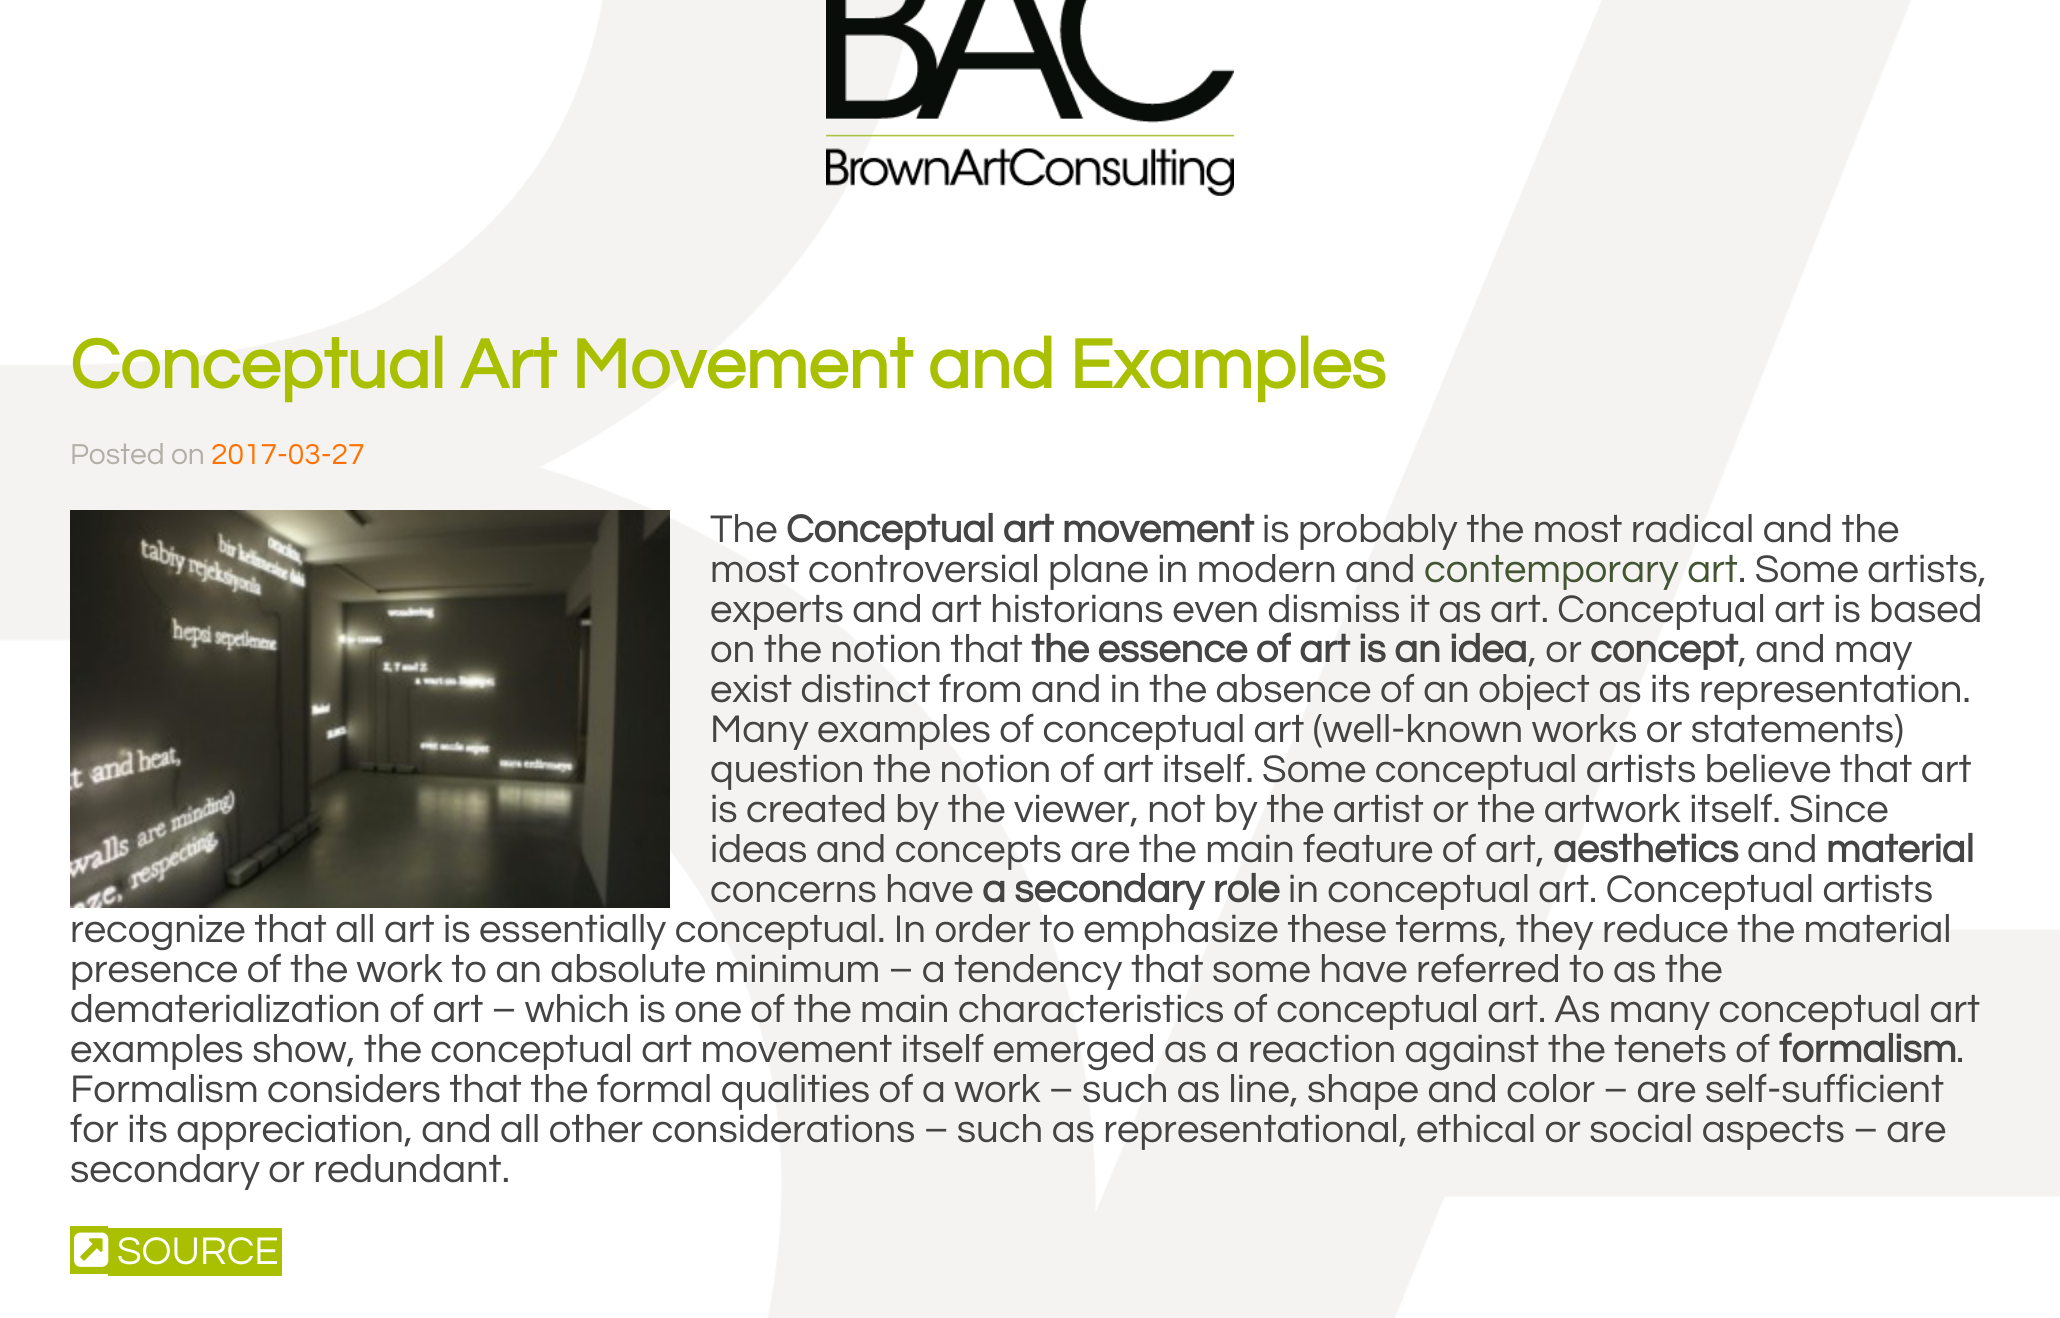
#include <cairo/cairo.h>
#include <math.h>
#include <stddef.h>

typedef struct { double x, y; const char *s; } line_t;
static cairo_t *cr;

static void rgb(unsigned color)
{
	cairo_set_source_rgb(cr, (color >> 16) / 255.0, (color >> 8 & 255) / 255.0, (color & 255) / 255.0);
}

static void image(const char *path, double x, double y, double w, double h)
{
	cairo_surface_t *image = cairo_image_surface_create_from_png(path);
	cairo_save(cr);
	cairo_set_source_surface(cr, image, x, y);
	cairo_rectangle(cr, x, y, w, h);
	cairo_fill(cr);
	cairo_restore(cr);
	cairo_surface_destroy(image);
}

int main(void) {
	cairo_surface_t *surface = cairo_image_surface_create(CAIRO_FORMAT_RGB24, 2060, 1318);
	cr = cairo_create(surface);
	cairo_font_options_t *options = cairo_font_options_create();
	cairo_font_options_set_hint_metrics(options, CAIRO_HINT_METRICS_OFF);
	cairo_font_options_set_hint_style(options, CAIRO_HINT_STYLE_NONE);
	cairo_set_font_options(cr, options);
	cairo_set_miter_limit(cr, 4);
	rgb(0xffffff);
	cairo_paint(cr);
	image("img/1.png", 0, 0, 2060, 1318);
	image("img/2.png", 826, 0, 408, 196);
	image("img/3.png", 70, 510, 600, 398);
	rgb(0xa8c000);
	cairo_rectangle(cr, 70, 1226, 38, 48);
	cairo_fill(cr);
	cairo_rectangle(cr, 108, 1228, 174, 48);
	cairo_fill(cr);
	image("img/4.png", 74, 1232, 35, 35);
	cairo_select_font_face(cr, "Questrial", CAIRO_FONT_SLANT_NORMAL, CAIRO_FONT_WEIGHT_BOLD);
	cairo_set_font_size(cr, 72);
	cairo_move_to(cr, 70, 388);
	cairo_show_text(cr, "Conceptual Art Movement and Examples");
	cairo_select_font_face(cr, "Questrial", CAIRO_FONT_SLANT_NORMAL, CAIRO_FONT_WEIGHT_NORMAL);
	cairo_set_font_size(cr, 30);
	rgb(0xb3afa6);
	cairo_move_to(cr, 70, 464);
	cairo_show_text(cr, "Posted on");
	rgb(0xff7200);
	cairo_move_to(cr, 211, 464);
	cairo_show_text(cr, "2017-03-27");
	cairo_set_font_size(cr, 40);
	rgb(0x444444);
	cairo_move_to(cr, 710, 542);
	cairo_show_text(cr, "The");
	cairo_select_font_face(cr, "Questrial", CAIRO_FONT_SLANT_NORMAL, CAIRO_FONT_WEIGHT_BOLD);
	cairo_move_to(cr, 786, 542);
	cairo_show_text(cr, "Conceptual art movement");
	cairo_select_font_face(cr, "Questrial", CAIRO_FONT_SLANT_NORMAL, CAIRO_FONT_WEIGHT_NORMAL);
	cairo_move_to(cr, 1262, 542);
	cairo_show_text(cr, "is probably the most radical and the");
	cairo_move_to(cr, 710, 582);
	cairo_show_text(cr, "most controversial plane in modern and");
	rgb(0x445533);
	cairo_move_to(cr, 1424, 582);
	cairo_show_text(cr, "contemporary art");
	rgb(0x444444);
	{
		static const line_t items[] = {
			{1738, 582, ". Some artists,"},
			{710, 622, "experts and art historians even dismiss it as art. Conceptual art is based"},
			{710, 662, "on the notion that"},
		};
		for (size_t i = 0; i < sizeof items / sizeof *items; i++) {
			cairo_move_to(cr, items[i].x, items[i].y);
			cairo_show_text(cr, items[i].s);
		}
	}
	cairo_select_font_face(cr, "Questrial", CAIRO_FONT_SLANT_NORMAL, CAIRO_FONT_WEIGHT_BOLD);
	cairo_move_to(cr, 1031, 662);
	cairo_show_text(cr, "the essence of art is an idea");
	cairo_select_font_face(cr, "Questrial", CAIRO_FONT_SLANT_NORMAL, CAIRO_FONT_WEIGHT_NORMAL);
	cairo_move_to(cr, 1528, 662);
	cairo_show_text(cr, ", or");
	cairo_select_font_face(cr, "Questrial", CAIRO_FONT_SLANT_NORMAL, CAIRO_FONT_WEIGHT_BOLD);
	cairo_move_to(cr, 1590, 662);
	cairo_show_text(cr, "concept");
	cairo_select_font_face(cr, "Questrial", CAIRO_FONT_SLANT_NORMAL, CAIRO_FONT_WEIGHT_NORMAL);
	{
		static const line_t items[] = {
			{1738, 662, ", and may"},
			{710, 702, "exist distinct from and in the absence of an object as its representation."},
			{710, 742, "Many examples of conceptual art (well-known works or statements)"},
			{710, 782, "question the notion of art itself. Some conceptual artists believe that art"},
			{710, 822, "is created by the viewer, not by the artist or the artwork itself. Since"},
			{710, 862, "ideas and concepts are the main feature of art,"},
		};
		for (size_t i = 0; i < sizeof items / sizeof *items; i++) {
			cairo_move_to(cr, items[i].x, items[i].y);
			cairo_show_text(cr, items[i].s);
		}
	}
	cairo_select_font_face(cr, "Questrial", CAIRO_FONT_SLANT_NORMAL, CAIRO_FONT_WEIGHT_BOLD);
	cairo_move_to(cr, 1553, 862);
	cairo_show_text(cr, "aesthetics");
	cairo_select_font_face(cr, "Questrial", CAIRO_FONT_SLANT_NORMAL, CAIRO_FONT_WEIGHT_NORMAL);
	cairo_move_to(cr, 1747, 862);
	cairo_show_text(cr, "and");
	cairo_select_font_face(cr, "Questrial", CAIRO_FONT_SLANT_NORMAL, CAIRO_FONT_WEIGHT_BOLD);
	cairo_move_to(cr, 1826, 862);
	cairo_show_text(cr, "material");
	cairo_select_font_face(cr, "Questrial", CAIRO_FONT_SLANT_NORMAL, CAIRO_FONT_WEIGHT_NORMAL);
	cairo_move_to(cr, 710, 902);
	cairo_show_text(cr, "concerns have");
	cairo_select_font_face(cr, "Questrial", CAIRO_FONT_SLANT_NORMAL, CAIRO_FONT_WEIGHT_BOLD);
	cairo_move_to(cr, 982, 902);
	cairo_show_text(cr, "a secondary role");
	cairo_select_font_face(cr, "Questrial", CAIRO_FONT_SLANT_NORMAL, CAIRO_FONT_WEIGHT_NORMAL);
	{
		static const line_t items[] = {
			{1288, 902, "in conceptual art. Conceptual artists"},
			{70, 942, "recognize that all art is essentially conceptual. In order to emphasize these terms, they reduce the material"},
			{70, 982, "presence of the work to an absolute minimum – a tendency that some have referred to as the"},
			{70, 1022, "dematerialization of art – which is one of the main characteristics of conceptual art. As many conceptual art"},
			{70, 1062, "examples show, the conceptual art movement itself emerged as a reaction against the tenets of"},
		};
		for (size_t i = 0; i < sizeof items / sizeof *items; i++) {
			cairo_move_to(cr, items[i].x, items[i].y);
			cairo_show_text(cr, items[i].s);
		}
	}
	cairo_select_font_face(cr, "Questrial", CAIRO_FONT_SLANT_NORMAL, CAIRO_FONT_WEIGHT_BOLD);
	cairo_move_to(cr, 1779, 1062);
	cairo_show_text(cr, "formalism");
	cairo_select_font_face(cr, "Questrial", CAIRO_FONT_SLANT_NORMAL, CAIRO_FONT_WEIGHT_NORMAL);
	{
		static const line_t items[] = {
			{1956, 1062, "."},
			{70, 1102, "Formalism considers that the formal qualities of a work – such as line, shape and color – are self-sufficient"},
			{70, 1142, "for its appreciation, and all other considerations – such as representational, ethical or social aspects – are"},
			{70, 1182, "secondary or redundant."},
		};
		for (size_t i = 0; i < sizeof items / sizeof *items; i++) {
			cairo_move_to(cr, items[i].x, items[i].y);
			cairo_show_text(cr, items[i].s);
		}
	}
	rgb(0xffffff);
	cairo_move_to(cr, 117, 1264);
	cairo_show_text(cr, "SOURCE");
	cairo_surface_write_to_png(surface, "page.png");
	cairo_font_options_destroy(options);
	cairo_destroy(cr);
	cairo_surface_destroy(surface);
	return 0;
}
